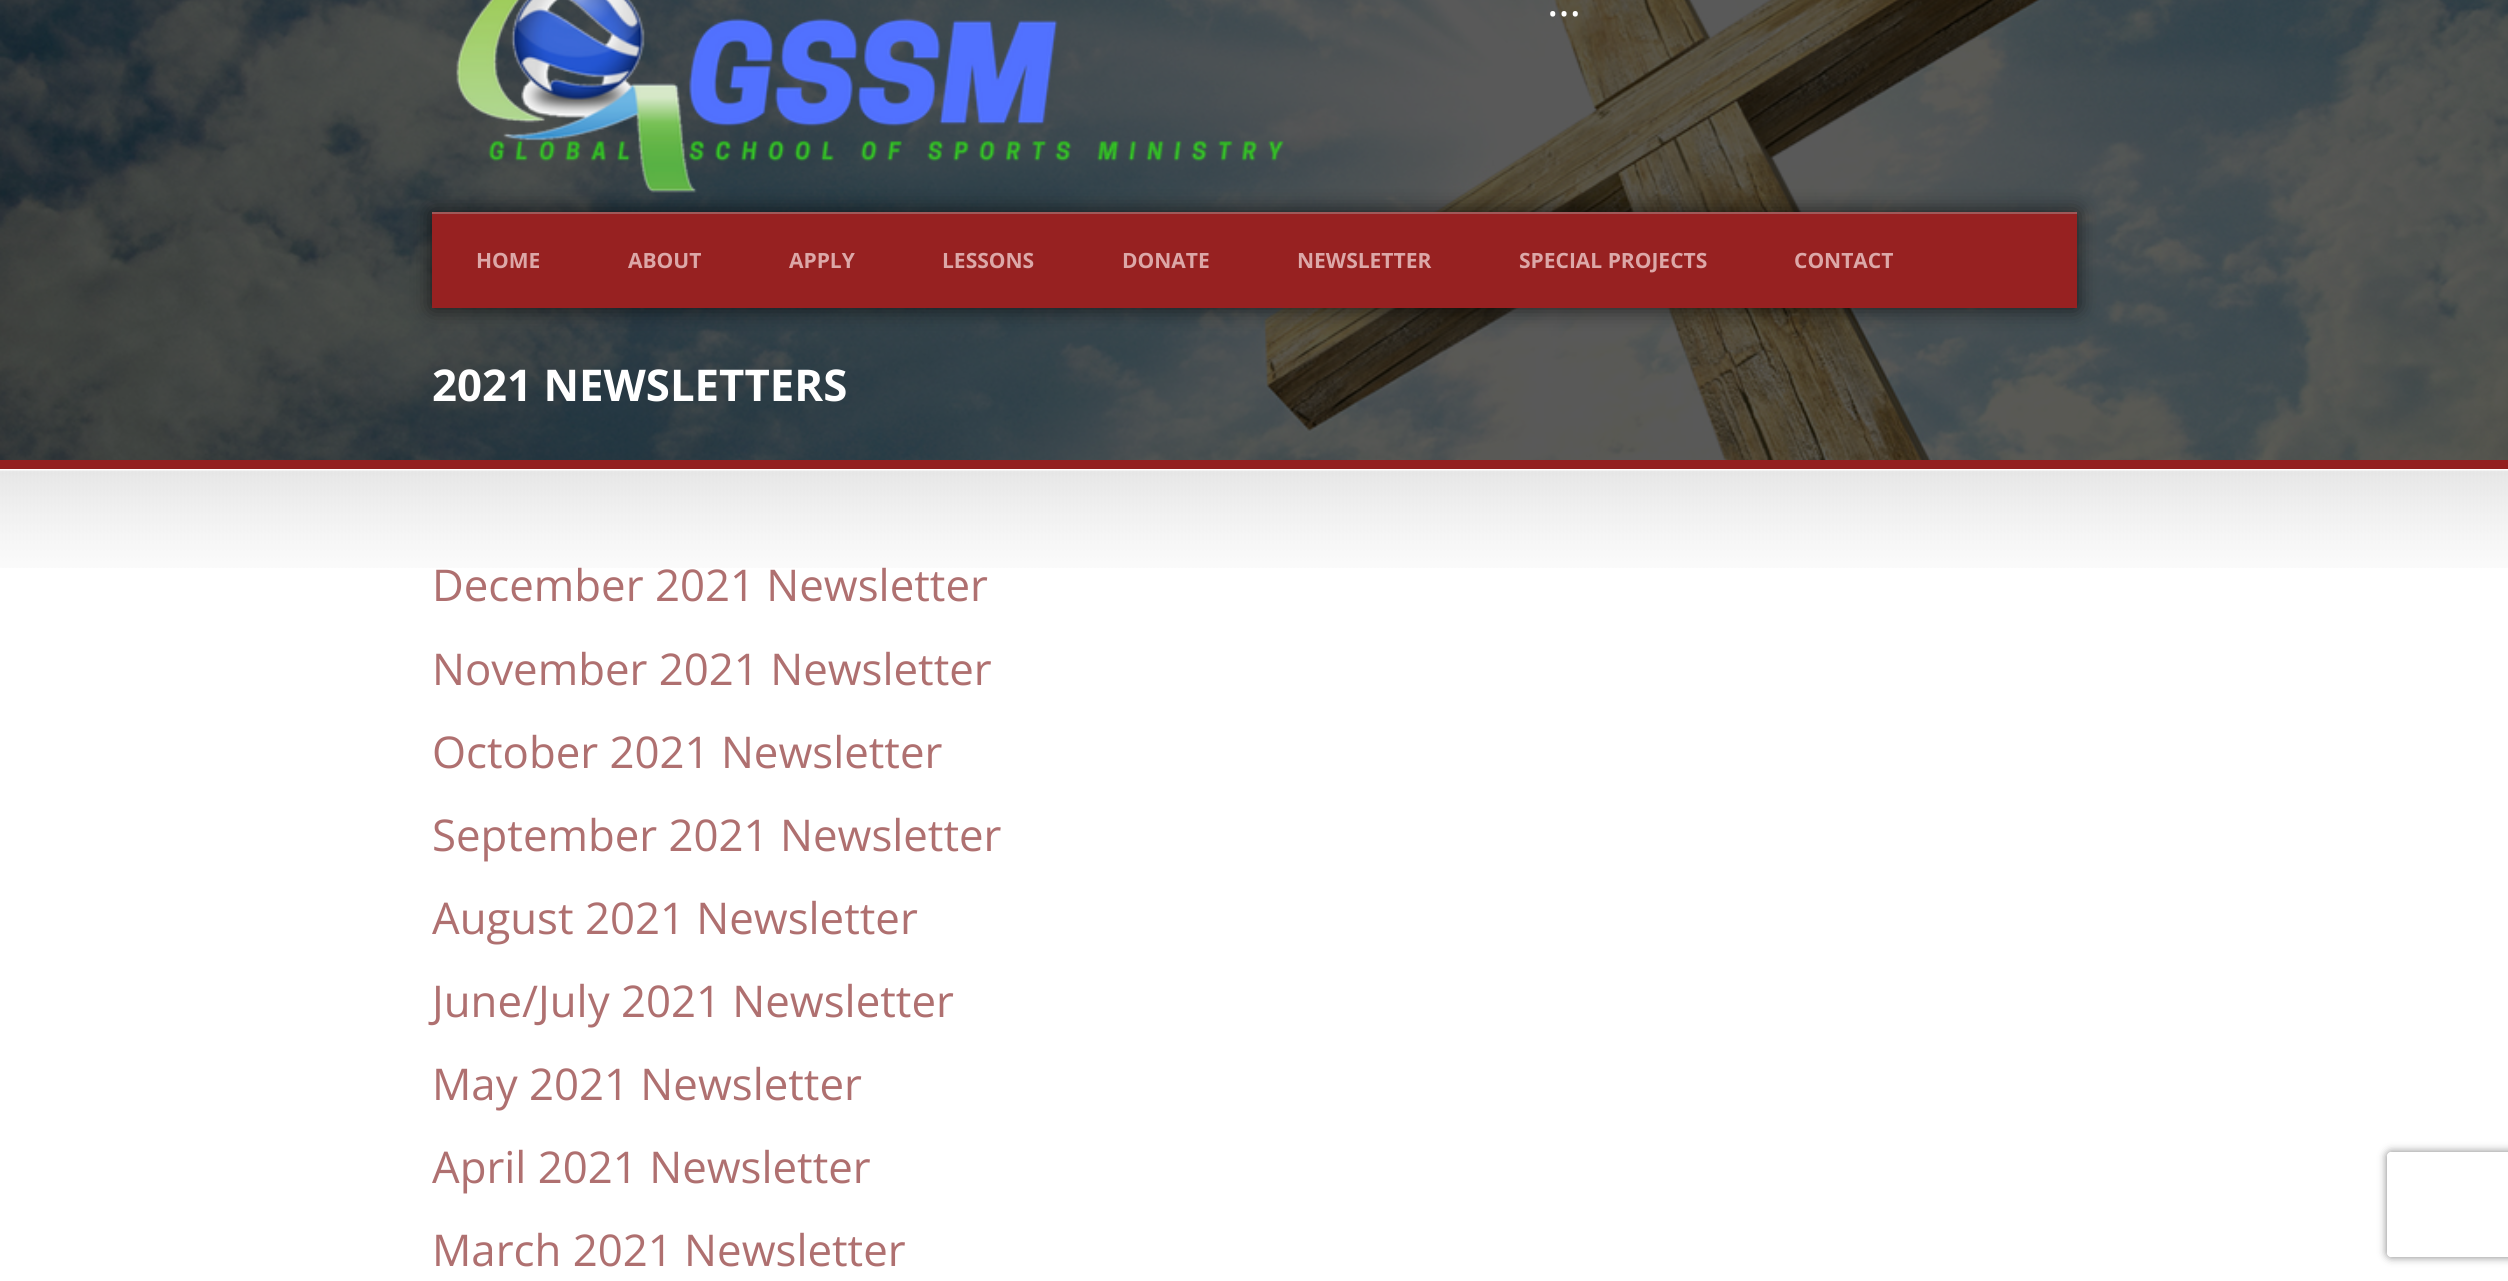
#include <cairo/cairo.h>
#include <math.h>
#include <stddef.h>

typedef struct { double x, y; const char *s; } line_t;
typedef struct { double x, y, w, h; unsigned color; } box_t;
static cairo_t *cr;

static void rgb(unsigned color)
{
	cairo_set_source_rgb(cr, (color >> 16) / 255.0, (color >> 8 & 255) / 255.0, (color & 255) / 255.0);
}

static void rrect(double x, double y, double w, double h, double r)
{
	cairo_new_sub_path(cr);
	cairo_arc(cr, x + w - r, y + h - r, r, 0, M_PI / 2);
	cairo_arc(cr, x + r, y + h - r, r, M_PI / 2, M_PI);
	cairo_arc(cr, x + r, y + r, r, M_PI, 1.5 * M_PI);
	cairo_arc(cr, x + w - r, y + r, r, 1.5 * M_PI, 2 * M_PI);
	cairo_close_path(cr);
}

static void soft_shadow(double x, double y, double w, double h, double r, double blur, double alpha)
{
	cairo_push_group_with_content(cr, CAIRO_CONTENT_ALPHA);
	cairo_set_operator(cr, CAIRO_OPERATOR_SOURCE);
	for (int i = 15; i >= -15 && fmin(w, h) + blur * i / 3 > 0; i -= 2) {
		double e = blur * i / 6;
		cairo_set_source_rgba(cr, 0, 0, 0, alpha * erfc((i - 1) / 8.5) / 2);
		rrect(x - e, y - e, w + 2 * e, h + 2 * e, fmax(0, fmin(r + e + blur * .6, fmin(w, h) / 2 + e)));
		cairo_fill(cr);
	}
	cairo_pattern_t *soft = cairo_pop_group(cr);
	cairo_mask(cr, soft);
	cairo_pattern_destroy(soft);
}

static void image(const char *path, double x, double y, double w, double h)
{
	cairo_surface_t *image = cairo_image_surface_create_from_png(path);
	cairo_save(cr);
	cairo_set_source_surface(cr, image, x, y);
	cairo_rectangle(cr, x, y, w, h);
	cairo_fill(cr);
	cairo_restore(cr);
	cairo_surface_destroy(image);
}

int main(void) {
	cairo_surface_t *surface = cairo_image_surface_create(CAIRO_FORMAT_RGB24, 2508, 1281);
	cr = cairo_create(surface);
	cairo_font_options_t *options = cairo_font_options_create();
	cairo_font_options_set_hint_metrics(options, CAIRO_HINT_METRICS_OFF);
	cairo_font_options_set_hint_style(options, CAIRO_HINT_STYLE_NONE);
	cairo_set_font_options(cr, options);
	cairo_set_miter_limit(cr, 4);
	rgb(0xffffff);
	cairo_paint(cr);
	image("img/1.png", 0, 0, 2508, 460);
	image("img/2.png", 456, 0, 828, 193);
	rgb(0x000000);
	soft_shadow(432, 212, 1645, 96, 0, 10.5, 0.7);
	{
		static const box_t items[] = {
			{432, 214, 1645, 94, 0x972121},
			{432, 212, 1645, 2, 0xa05858},
			{0, 460, 2508, 9, 0x931f1f},
		};
		for (size_t i = 0; i < sizeof items / sizeof *items; i++) {
			rgb(items[i].color);
			cairo_rectangle(cr, items[i].x, items[i].y, items[i].w, items[i].h);
			cairo_fill(cr);
		}
	}
	image("img/3.png", 0, 470, 2508, 98);
	cairo_save(cr);
	cairo_set_fill_rule(cr, CAIRO_FILL_RULE_EVEN_ODD);
	cairo_new_path(cr);
	cairo_move_to(cr, 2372, 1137);
	cairo_line_to(cr, 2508, 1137);
	cairo_line_to(cr, 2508, 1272);
	cairo_line_to(cr, 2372, 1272);
	cairo_close_path(cr);
	cairo_move_to(cr, 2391, 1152);
	cairo_line_to(cr, 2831, 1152);
	cairo_curve_to(cr, 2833, 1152, 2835, 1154, 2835, 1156);
	cairo_line_to(cr, 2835, 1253);
	cairo_curve_to(cr, 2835, 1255, 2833, 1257, 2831, 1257);
	cairo_line_to(cr, 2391, 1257);
	cairo_curve_to(cr, 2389, 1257, 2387, 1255, 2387, 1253);
	cairo_line_to(cr, 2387, 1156);
	cairo_curve_to(cr, 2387, 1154, 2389, 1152, 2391, 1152);
	cairo_close_path(cr);
	cairo_clip(cr);
	rgb(0x808080);
	soft_shadow(2387, 1152, 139, 105, 4, 4.5, 1);
	cairo_restore(cr);
	cairo_select_font_face(cr, "Open Sans", CAIRO_FONT_SLANT_NORMAL, CAIRO_FONT_WEIGHT_NORMAL);
	cairo_set_font_size(cr, 43.75);
	rgb(0xffffff);
	cairo_move_to(cr, 1547, 16);
	cairo_show_text(cr, "…");
	cairo_select_font_face(cr, "Open Sans", CAIRO_FONT_SLANT_NORMAL, CAIRO_FONT_WEIGHT_BOLD);
	cairo_set_font_size(cr, 21);
	rgb(0xdca8a8);
	{
		static const line_t items[] = {
			{476, 268, "HOME"},
			{628, 268, "ABOUT"},
			{789, 268, "APPLY"},
			{942, 268, "LESSONS"},
			{1122, 268, "DONATE"},
			{1297, 268, "NEWSLETTER"},
			{1519, 268, "SPECIAL PROJECTS"},
			{1794, 268, "CONTACT"},
		};
		for (size_t i = 0; i < sizeof items / sizeof *items; i++) {
			cairo_move_to(cr, items[i].x, items[i].y);
			cairo_show_text(cr, items[i].s);
		}
	}
	cairo_set_font_size(cr, 43.75);
	rgb(0xffffff);
	cairo_move_to(cr, 432, 401);
	cairo_show_text(cr, "2021 NEWSLETTERS");
	cairo_select_font_face(cr, "Open Sans", CAIRO_FONT_SLANT_NORMAL, CAIRO_FONT_WEIGHT_NORMAL);
	rgb(0xaf7070);
	{
		static const line_t items[] = {
			{432, 601, "December 2021 Newsletter"},
			{432, 685, "November 2021 Newsletter"},
			{432, 768, "October 2021 Newsletter"},
			{432, 851, "September 2021 Newsletter"},
			{432, 934, "August 2021 Newsletter"},
			{432, 1017, "June/July 2021 Newsletter"},
			{432, 1100, "May 2021 Newsletter"},
			{432, 1183, "April 2021 Newsletter"},
			{432, 1266, "March 2021 Newsletter"},
		};
		for (size_t i = 0; i < sizeof items / sizeof *items; i++) {
			cairo_move_to(cr, items[i].x, items[i].y);
			cairo_show_text(cr, items[i].s);
		}
	}
	cairo_surface_write_to_png(surface, "page.png");
	cairo_font_options_destroy(options);
	cairo_destroy(cr);
	cairo_surface_destroy(surface);
	return 0;
}
